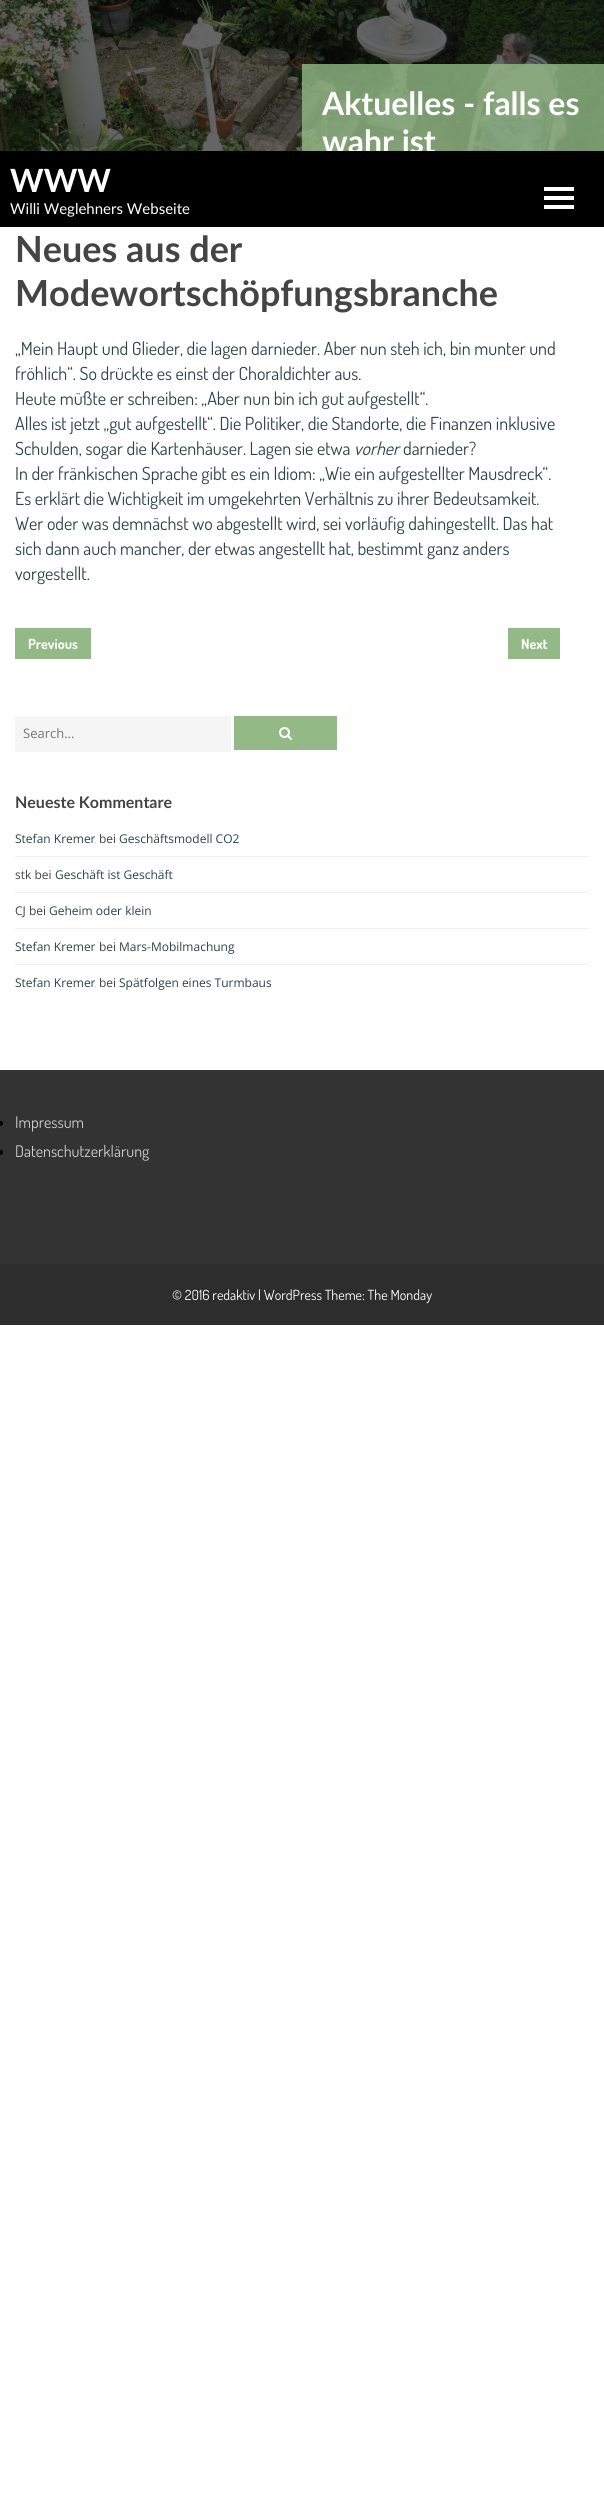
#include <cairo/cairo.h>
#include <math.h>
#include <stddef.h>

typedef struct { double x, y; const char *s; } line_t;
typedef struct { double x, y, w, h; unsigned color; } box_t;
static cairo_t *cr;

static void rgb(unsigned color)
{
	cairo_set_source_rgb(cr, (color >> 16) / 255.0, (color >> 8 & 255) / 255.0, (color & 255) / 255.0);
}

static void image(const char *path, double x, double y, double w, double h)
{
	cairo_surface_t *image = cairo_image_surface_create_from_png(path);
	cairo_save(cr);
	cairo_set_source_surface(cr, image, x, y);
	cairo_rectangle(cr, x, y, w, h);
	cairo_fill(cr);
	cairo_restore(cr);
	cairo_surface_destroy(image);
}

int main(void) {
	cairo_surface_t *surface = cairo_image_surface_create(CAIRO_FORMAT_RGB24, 604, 2510);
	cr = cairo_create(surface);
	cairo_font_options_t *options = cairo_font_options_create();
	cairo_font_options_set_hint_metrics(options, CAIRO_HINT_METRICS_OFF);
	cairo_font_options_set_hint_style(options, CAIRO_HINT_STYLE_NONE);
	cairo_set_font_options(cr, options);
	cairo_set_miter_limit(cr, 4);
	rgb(0xffffff);
	cairo_paint(cr);
	image("img/1.png", 0, 0, 604, 151);
	cairo_set_source_rgba(cr, 0.576, 0.725, 0.525, 0.8);
	cairo_rectangle(cr, 302, 64, 302, 87);
	cairo_fill(cr);
	rgb(0x93b986);
	cairo_rectangle(cr, 15, 628, 76, 31);
	cairo_fill(cr);
	cairo_rectangle(cr, 508, 628, 52, 31);
	cairo_fill(cr);
	rgb(0xf6f5f5);
	cairo_rectangle(cr, 15, 716, 216, 36);
	cairo_fill(cr);
	rgb(0x93b986);
	cairo_rectangle(cr, 234, 716, 103, 34);
	cairo_fill(cr);
	image("img/2.png", 279, 727, 13, 13);
	{
		static const box_t items[] = {
			{15, 856, 574, 1, 0xf0f0f0},
			{15, 892, 574, 1, 0xf0f0f0},
			{15, 928, 574, 1, 0xf0f0f0},
			{15, 964, 574, 1, 0xf0f0f0},
			{0, 1070, 604, 194, 0x333333},
		};
		for (size_t i = 0; i < sizeof items / sizeof *items; i++) {
			rgb(items[i].color);
			cairo_rectangle(cr, items[i].x, items[i].y, items[i].w, items[i].h);
			cairo_fill(cr);
		}
	}
	rgb(0x000000);
	cairo_arc(cr, 0.5, 1123.5, 2.5, 0, 2 * M_PI);
	cairo_fill(cr);
	cairo_arc(cr, 0.5, 1152.5, 2.5, 0, 2 * M_PI);
	cairo_fill(cr);
	rgb(0x2d2d2d);
	cairo_rectangle(cr, 0, 1264, 604, 61);
	cairo_fill(cr);
	cairo_select_font_face(cr, "Lato", CAIRO_FONT_SLANT_NORMAL, CAIRO_FONT_WEIGHT_BOLD);
	cairo_set_font_size(cr, 32);
	rgb(0xffffff);
	cairo_move_to(cr, 322, 115);
	cairo_show_text(cr, "Aktuelles - falls es");
	cairo_move_to(cr, 322, 153);
	cairo_show_text(cr, "wahr ist");
	rgb(0x000000);
	cairo_rectangle(cr, 0, 151, 604, 76);
	cairo_fill(cr);
	rgb(0xffffff);
	cairo_move_to(cr, 10, 192);
	cairo_show_text(cr, "WWW");
	cairo_select_font_face(cr, "Lato", CAIRO_FONT_SLANT_NORMAL, CAIRO_FONT_WEIGHT_NORMAL);
	cairo_set_font_size(cr, 15);
	cairo_move_to(cr, 10, 214);
	cairo_show_text(cr, "Willi Weglehners Webseite");
	{
		static const box_t items[] = {
			{544, 187, 30, 4, 0xffffff},
			{544, 196, 30, 4, 0xffffff},
			{544, 205, 30, 4, 0xffffff},
		};
		for (size_t i = 0; i < sizeof items / sizeof *items; i++) {
			rgb(items[i].color);
			cairo_rectangle(cr, items[i].x, items[i].y, items[i].w, items[i].h);
			cairo_fill(cr);
		}
	}
	cairo_select_font_face(cr, "Lato", CAIRO_FONT_SLANT_NORMAL, CAIRO_FONT_WEIGHT_BOLD);
	cairo_set_font_size(cr, 36);
	rgb(0x444444);
	cairo_move_to(cr, 15, 262);
	cairo_show_text(cr, "Neues aus der");
	cairo_move_to(cr, 15, 306);
	cairo_show_text(cr, "Modewortschöpfungsbranche");
	cairo_select_font_face(cr, "Dosis", CAIRO_FONT_SLANT_NORMAL, CAIRO_FONT_WEIGHT_NORMAL);
	cairo_set_font_size(cr, 18);
	rgb(0x2f4344);
	{
		static const line_t items[] = {
			{15, 355, "„Mein Haupt und Glieder, die lagen darnieder. Aber nun steh ich, bin munter und"},
			{15, 380, "fröhlich“. So drückte es einst der Choraldichter aus."},
			{15, 405, "Heute müßte er schreiben: „Aber nun bin ich gut aufgestellt“."},
			{15, 430, "Alles ist jetzt „gut aufgestellt“. Die Politiker, die Standorte, die Finanzen inklusive"},
			{15, 455, "Schulden, sogar die Kartenhäuser. Lagen sie etwa"},
		};
		for (size_t i = 0; i < sizeof items / sizeof *items; i++) {
			cairo_move_to(cr, items[i].x, items[i].y);
			cairo_show_text(cr, items[i].s);
		}
	}
	cairo_select_font_face(cr, "Dosis", CAIRO_FONT_SLANT_ITALIC, CAIRO_FONT_WEIGHT_NORMAL);
	cairo_move_to(cr, 354, 455);
	cairo_show_text(cr, "vorher");
	cairo_select_font_face(cr, "Dosis", CAIRO_FONT_SLANT_NORMAL, CAIRO_FONT_WEIGHT_NORMAL);
	{
		static const line_t items[] = {
			{403, 455, "darnieder?"},
			{15, 480, "In der fränkischen Sprache gibt es ein Idiom: „Wie ein aufgestellter Mausdreck“."},
			{15, 505, "Es erklärt die Wichtigkeit im umgekehrten Verhältnis zu ihrer Bedeutsamkeit."},
			{15, 530, "Wer oder was demnächst wo abgestellt wird, sei vorläufig dahingestellt. Das hat"},
			{15, 555, "sich dann auch mancher, der etwas angestellt hat, bestimmt ganz anders"},
			{15, 580, "vorgestellt."},
		};
		for (size_t i = 0; i < sizeof items / sizeof *items; i++) {
			cairo_move_to(cr, items[i].x, items[i].y);
			cairo_show_text(cr, items[i].s);
		}
	}
	cairo_select_font_face(cr, "Dosis", CAIRO_FONT_SLANT_NORMAL, CAIRO_FONT_WEIGHT_BOLD);
	cairo_set_font_size(cr, 14);
	rgb(0xffffff);
	cairo_move_to(cr, 28, 649);
	cairo_show_text(cr, "Previous");
	cairo_move_to(cr, 521, 649);
	cairo_show_text(cr, "Next");
	cairo_select_font_face(cr, "Open Sans", CAIRO_FONT_SLANT_NORMAL, CAIRO_FONT_WEIGHT_NORMAL);
	cairo_set_font_size(cr, 13);
	rgb(0x757575);
	cairo_move_to(cr, 23, 738);
	cairo_show_text(cr, "Search...");
	cairo_select_font_face(cr, "Lato", CAIRO_FONT_SLANT_NORMAL, CAIRO_FONT_WEIGHT_BOLD);
	cairo_set_font_size(cr, 16);
	rgb(0x444444);
	cairo_move_to(cr, 15, 808);
	cairo_show_text(cr, "Neueste Kommentare");
	cairo_select_font_face(cr, "Open Sans", CAIRO_FONT_SLANT_NORMAL, CAIRO_FONT_WEIGHT_NORMAL);
	cairo_set_font_size(cr, 12);
	rgb(0x2f4344);
	cairo_move_to(cr, 15, 843);
	cairo_show_text(cr, "Stefan Kremer");
	rgb(0x444444);
	cairo_move_to(cr, 99, 843);
	cairo_show_text(cr, "bei");
	rgb(0x2f4344);
	cairo_move_to(cr, 119, 843);
	cairo_show_text(cr, "Geschäftsmodell CO2");
	rgb(0x444444);
	cairo_move_to(cr, 15, 879);
	cairo_show_text(cr, "stk bei");
	rgb(0x2f4344);
	cairo_move_to(cr, 55, 879);
	cairo_show_text(cr, "Geschäft ist Geschäft");
	rgb(0x444444);
	cairo_move_to(cr, 15, 915);
	cairo_show_text(cr, "CJ bei");
	rgb(0x2f4344);
	cairo_move_to(cr, 49, 915);
	cairo_show_text(cr, "Geheim oder klein");
	cairo_move_to(cr, 15, 951);
	cairo_show_text(cr, "Stefan Kremer");
	rgb(0x444444);
	cairo_move_to(cr, 99, 951);
	cairo_show_text(cr, "bei");
	rgb(0x2f4344);
	cairo_move_to(cr, 119, 951);
	cairo_show_text(cr, "Mars-Mobilmachung");
	cairo_move_to(cr, 15, 987);
	cairo_show_text(cr, "Stefan Kremer");
	rgb(0x444444);
	cairo_move_to(cr, 99, 987);
	cairo_show_text(cr, "bei");
	rgb(0x2f4344);
	cairo_move_to(cr, 119, 987);
	cairo_show_text(cr, "Spätfolgen eines Turmbaus");
	cairo_select_font_face(cr, "Dosis", CAIRO_FONT_SLANT_NORMAL, CAIRO_FONT_WEIGHT_NORMAL);
	cairo_set_font_size(cr, 16);
	rgb(0xcbcbcb);
	cairo_move_to(cr, 15, 1128);
	cairo_show_text(cr, "Impressum");
	cairo_move_to(cr, 15, 1157);
	cairo_show_text(cr, "Datenschutzerklärung");
	cairo_set_font_size(cr, 14);
	rgb(0xffffff);
	cairo_move_to(cr, 172, 1300);
	cairo_show_text(cr, "© 2016 redaktiv | WordPress Theme: The Monday");
	cairo_surface_write_to_png(surface, "page.png");
	cairo_font_options_destroy(options);
	cairo_destroy(cr);
	cairo_surface_destroy(surface);
	return 0;
}
